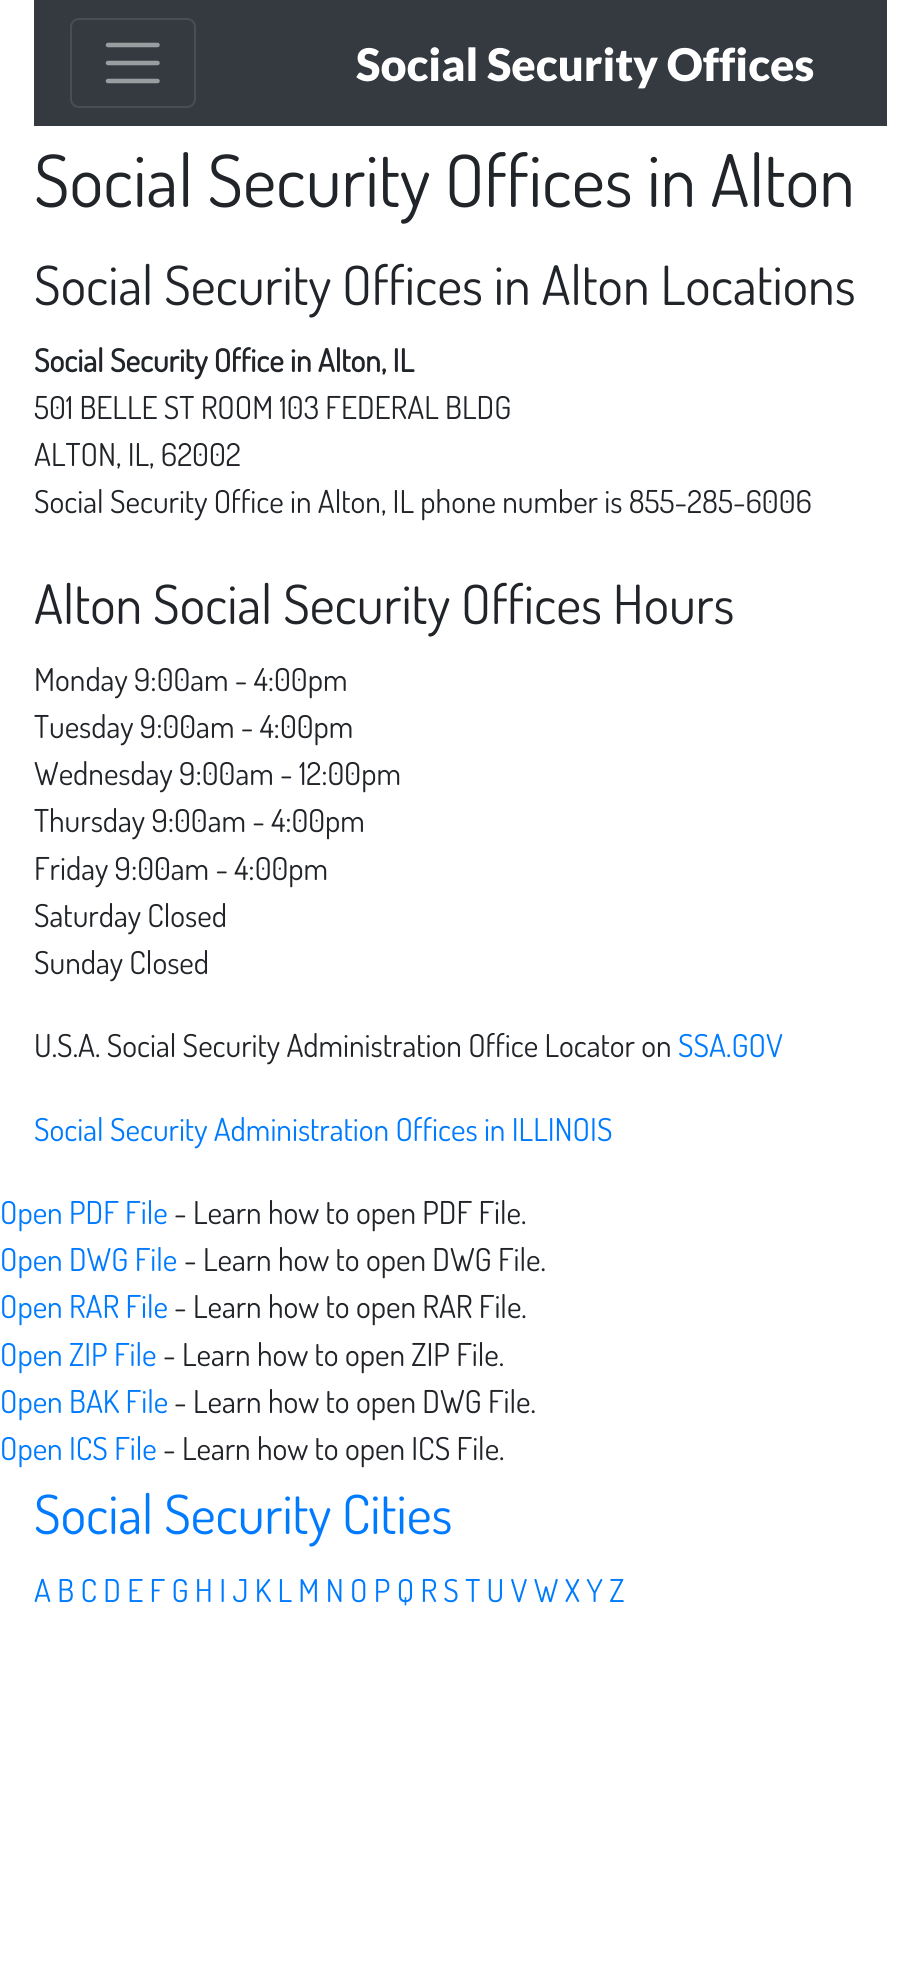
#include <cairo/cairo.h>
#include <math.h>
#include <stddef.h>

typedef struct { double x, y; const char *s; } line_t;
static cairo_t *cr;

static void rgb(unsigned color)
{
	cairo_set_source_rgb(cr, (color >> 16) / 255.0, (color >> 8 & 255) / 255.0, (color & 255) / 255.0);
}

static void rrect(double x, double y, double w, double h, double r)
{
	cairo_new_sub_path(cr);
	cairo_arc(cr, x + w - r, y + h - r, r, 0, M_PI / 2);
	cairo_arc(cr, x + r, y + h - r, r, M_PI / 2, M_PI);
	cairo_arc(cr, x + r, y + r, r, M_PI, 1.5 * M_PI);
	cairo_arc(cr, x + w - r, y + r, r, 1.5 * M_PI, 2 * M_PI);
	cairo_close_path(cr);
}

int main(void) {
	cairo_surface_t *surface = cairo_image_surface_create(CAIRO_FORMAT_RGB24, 919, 1968);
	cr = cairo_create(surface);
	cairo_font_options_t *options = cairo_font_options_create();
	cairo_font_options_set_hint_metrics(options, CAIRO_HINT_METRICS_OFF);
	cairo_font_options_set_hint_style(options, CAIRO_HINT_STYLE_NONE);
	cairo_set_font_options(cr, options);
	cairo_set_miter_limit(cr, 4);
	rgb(0xffffff);
	cairo_paint(cr);
	rgb(0x343a40);
	cairo_rectangle(cr, 34, 0, 853, 126);
	cairo_fill(cr);
	rrect(71, 19, 124, 88, 8);
	rgb(0x484e53);
	cairo_stroke(cr);
	cairo_new_path(cr);
	cairo_move_to(cr, 108, 45);
	cairo_line_to(cr, 157.5, 45);
	cairo_move_to(cr, 108, 63);
	cairo_line_to(cr, 157.5, 63);
	cairo_move_to(cr, 108, 81);
	cairo_line_to(cr, 157.5, 81);
	rgb(0x9a9da0);
	cairo_set_line_width(cr, 4.5);
	cairo_set_line_cap(cr, CAIRO_LINE_CAP_ROUND);
	cairo_stroke(cr);
	cairo_select_font_face(cr, "Lato Black", CAIRO_FONT_SLANT_NORMAL, CAIRO_FONT_WEIGHT_NORMAL);
	cairo_set_font_size(cr, 45);
	rgb(0xffffff);
	cairo_move_to(cr, 356, 81);
	cairo_show_text(cr, "Social Security Offices");
	cairo_select_font_face(cr, "Dosis", CAIRO_FONT_SLANT_NORMAL, CAIRO_FONT_WEIGHT_NORMAL);
	cairo_set_font_size(cr, 72);
	rgb(0x212529);
	cairo_move_to(cr, 34, 207);
	cairo_show_text(cr, "Social Security Offices in Alton");
	cairo_set_font_size(cr, 54);
	cairo_move_to(cr, 34, 305);
	cairo_show_text(cr, "Social Security Offices in Alton Locations");
	cairo_select_font_face(cr, "Dosis", CAIRO_FONT_SLANT_NORMAL, CAIRO_FONT_WEIGHT_BOLD);
	cairo_set_font_size(cr, 31.5);
	cairo_move_to(cr, 34, 372);
	cairo_show_text(cr, "Social Security Office in Alton, IL");
	cairo_select_font_face(cr, "Dosis", CAIRO_FONT_SLANT_NORMAL, CAIRO_FONT_WEIGHT_NORMAL);
	{
		static const line_t items[] = {
			{34, 419, "501 BELLE ST ROOM 103 FEDERAL BLDG"},
			{34, 466, "ALTON, IL, 62002"},
			{34, 513, "Social Security Office in Alton, IL phone number is 855-285-6006"},
		};
		for (size_t i = 0; i < sizeof items / sizeof *items; i++) {
			cairo_move_to(cr, items[i].x, items[i].y);
			cairo_show_text(cr, items[i].s);
		}
	}
	cairo_set_font_size(cr, 54);
	cairo_move_to(cr, 34, 624);
	cairo_show_text(cr, "Alton Social Security Offices Hours");
	cairo_set_font_size(cr, 31.5);
	{
		static const line_t items[] = {
			{34, 691, "Monday 9:00am - 4:00pm"},
			{34, 738, "Tuesday 9:00am - 4:00pm"},
			{34, 785, "Wednesday 9:00am - 12:00pm"},
			{34, 832, "Thursday 9:00am - 4:00pm"},
			{34, 880, "Friday 9:00am - 4:00pm"},
			{34, 927, "Saturday Closed"},
			{34, 974, "Sunday Closed"},
			{34, 1057, "U.S.A. Social Security Administration Office Locator on"},
		};
		for (size_t i = 0; i < sizeof items / sizeof *items; i++) {
			cairo_move_to(cr, items[i].x, items[i].y);
			cairo_show_text(cr, items[i].s);
		}
	}
	rgb(0x007bff);
	{
		static const line_t items[] = {
			{678, 1057, "SSA.GOV"},
			{34, 1141, "Social Security Administration Offices in ILLINOIS"},
			{0, 1224, "Open PDF File"},
		};
		for (size_t i = 0; i < sizeof items / sizeof *items; i++) {
			cairo_move_to(cr, items[i].x, items[i].y);
			cairo_show_text(cr, items[i].s);
		}
	}
	rgb(0x212529);
	cairo_move_to(cr, 174, 1224);
	cairo_show_text(cr, "- Learn how to open PDF File.");
	rgb(0x007bff);
	cairo_move_to(cr, 0, 1271);
	cairo_show_text(cr, "Open DWG File");
	rgb(0x212529);
	cairo_move_to(cr, 184, 1271);
	cairo_show_text(cr, "- Learn how to open DWG File.");
	rgb(0x007bff);
	cairo_move_to(cr, 0, 1318);
	cairo_show_text(cr, "Open RAR File");
	rgb(0x212529);
	cairo_move_to(cr, 174, 1318);
	cairo_show_text(cr, "- Learn how to open RAR File.");
	rgb(0x007bff);
	cairo_move_to(cr, 0, 1366);
	cairo_show_text(cr, "Open ZIP File");
	rgb(0x212529);
	cairo_move_to(cr, 163, 1366);
	cairo_show_text(cr, "- Learn how to open ZIP File.");
	rgb(0x007bff);
	cairo_move_to(cr, 0, 1413);
	cairo_show_text(cr, "Open BAK File");
	rgb(0x212529);
	cairo_move_to(cr, 174, 1413);
	cairo_show_text(cr, "- Learn how to open DWG File.");
	rgb(0x007bff);
	cairo_move_to(cr, 0, 1460);
	cairo_show_text(cr, "Open ICS File");
	rgb(0x212529);
	cairo_move_to(cr, 163, 1460);
	cairo_show_text(cr, "- Learn how to open ICS File.");
	cairo_set_font_size(cr, 54);
	rgb(0x007bff);
	cairo_move_to(cr, 34, 1534);
	cairo_show_text(cr, "Social Security Cities");
	cairo_set_font_size(cr, 31.5);
	cairo_move_to(cr, 34, 1602);
	cairo_show_text(cr, "A B C D E F G H I J K L M N O P Q R S T U V W X Y Z");
	cairo_surface_write_to_png(surface, "page.png");
	cairo_font_options_destroy(options);
	cairo_destroy(cr);
	cairo_surface_destroy(surface);
	return 0;
}
